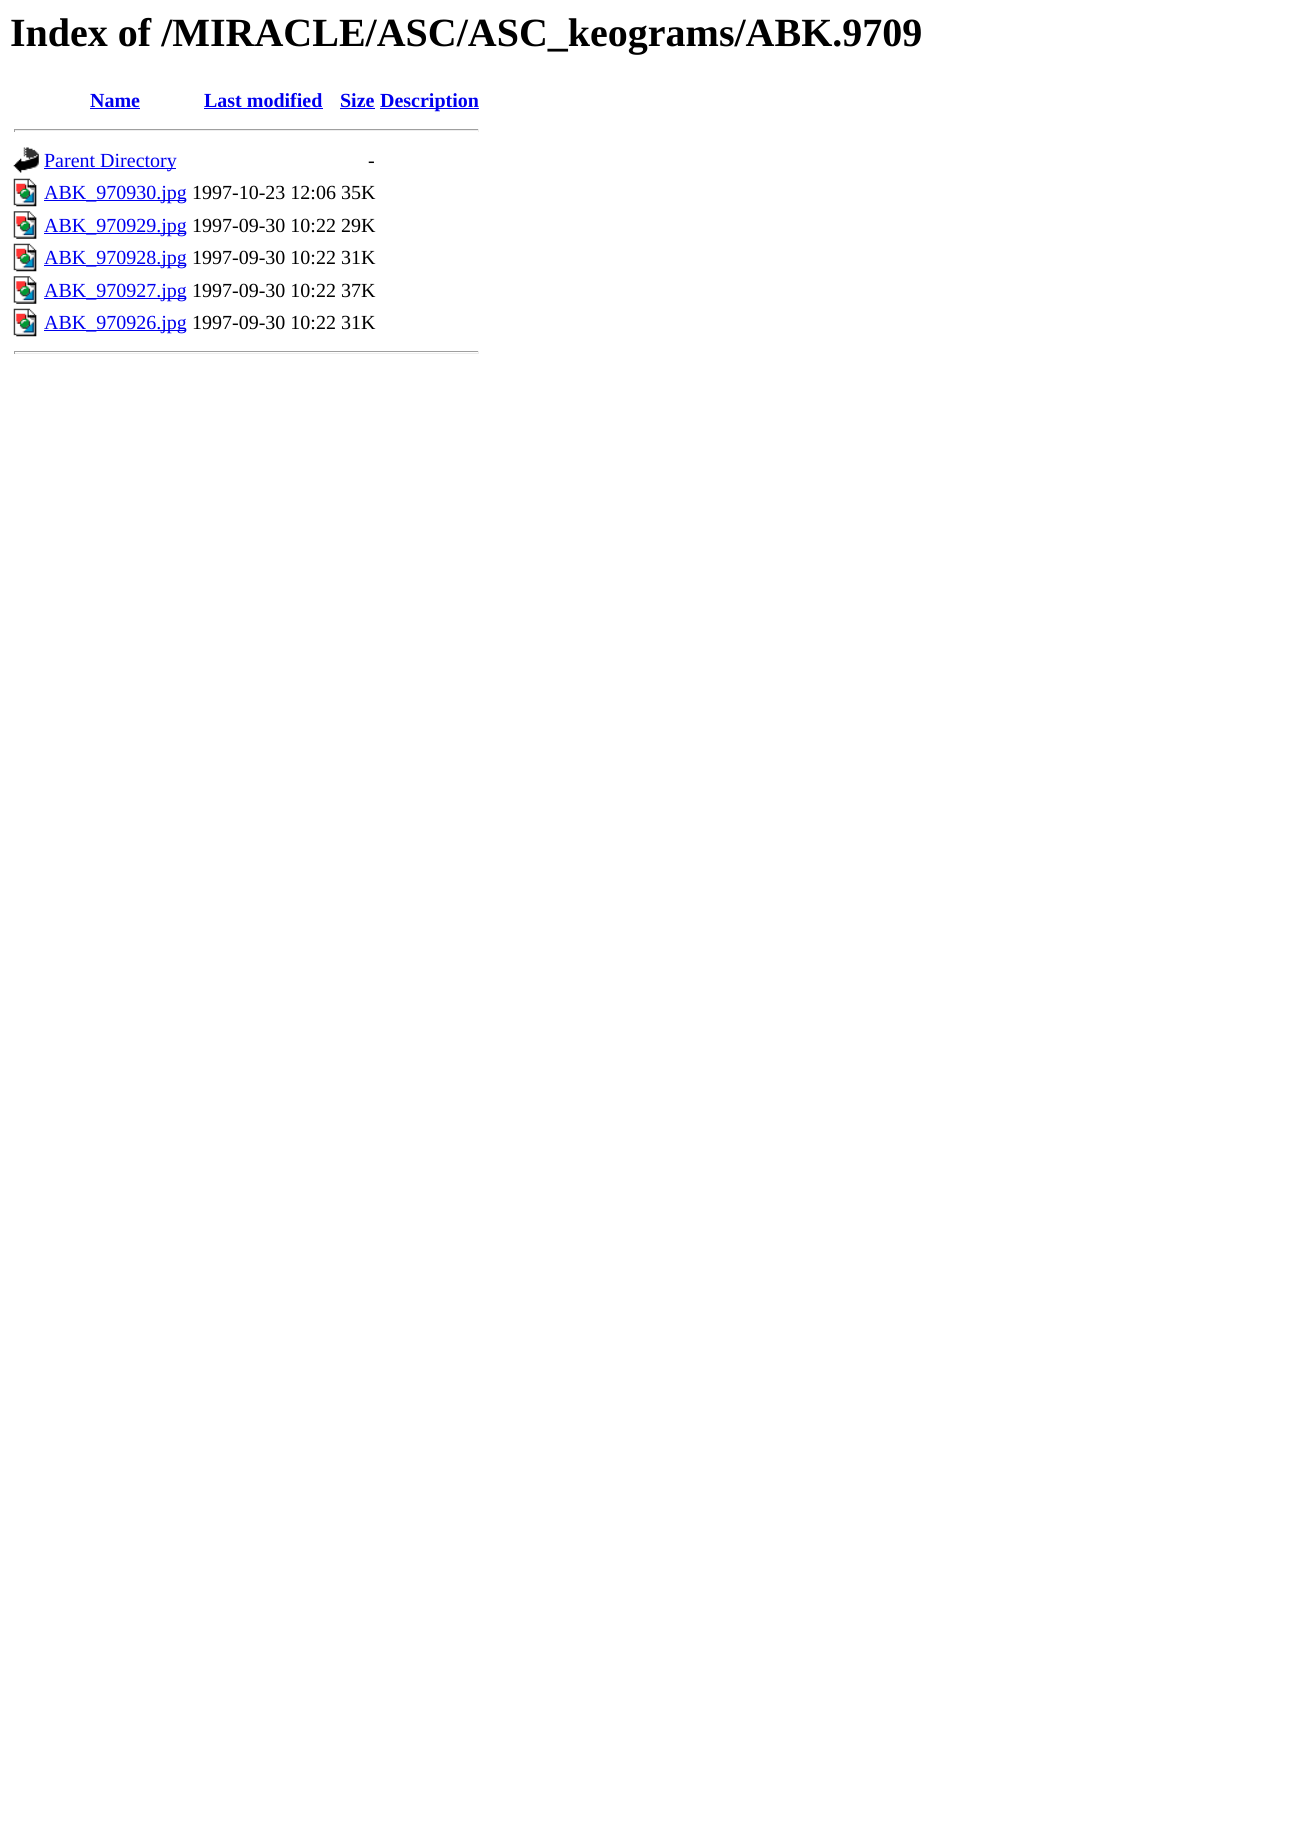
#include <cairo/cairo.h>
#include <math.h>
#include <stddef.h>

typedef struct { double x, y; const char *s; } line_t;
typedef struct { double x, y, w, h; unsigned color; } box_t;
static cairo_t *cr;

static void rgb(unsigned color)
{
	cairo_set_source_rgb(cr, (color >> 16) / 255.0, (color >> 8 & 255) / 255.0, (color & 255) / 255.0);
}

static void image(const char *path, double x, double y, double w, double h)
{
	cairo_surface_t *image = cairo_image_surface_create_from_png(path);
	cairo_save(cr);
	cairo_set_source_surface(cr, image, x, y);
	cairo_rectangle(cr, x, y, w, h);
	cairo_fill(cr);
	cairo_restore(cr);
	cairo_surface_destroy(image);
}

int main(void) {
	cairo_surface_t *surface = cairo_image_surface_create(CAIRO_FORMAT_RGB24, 1303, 1833);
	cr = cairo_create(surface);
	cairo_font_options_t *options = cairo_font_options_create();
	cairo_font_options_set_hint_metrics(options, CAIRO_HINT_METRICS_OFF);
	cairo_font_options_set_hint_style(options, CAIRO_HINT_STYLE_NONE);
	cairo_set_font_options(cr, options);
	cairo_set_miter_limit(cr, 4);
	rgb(0xffffff);
	cairo_paint(cr);
	{
		static const box_t items[] = {
			{90, 108, 50, 1, 0x0000ee},
			{204, 108, 119, 1, 0x0000ee},
			{340, 108, 35, 1, 0x0000ee},
			{380, 108, 99, 1, 0x0000ee},
			{14, 129, 465, 1, 0x9f9f9f},
			{478, 129, 1, 3, 0xeeeeee},
			{14, 130, 465, 1, 0xeeeeee},
			{14, 129, 1, 3, 0x9f9f9f},
		};
		for (size_t i = 0; i < sizeof items / sizeof *items; i++) {
			rgb(items[i].color);
			cairo_rectangle(cr, items[i].x, items[i].y, items[i].w, items[i].h);
			cairo_fill(cr);
		}
	}
	image("img/1.png", 13, 147, 26, 26);
	rgb(0x0000ee);
	cairo_rectangle(cr, 44, 168, 132, 1);
	cairo_fill(cr);
	image("img/2.png", 13, 178, 24, 29);
	cairo_rectangle(cr, 44, 200, 142, 1);
	cairo_fill(cr);
	image("img/3.png", 13, 211, 24, 28);
	cairo_rectangle(cr, 44, 233, 142, 1);
	cairo_fill(cr);
	image("img/2.png", 13, 243, 24, 29);
	cairo_rectangle(cr, 44, 265, 142, 1);
	cairo_fill(cr);
	image("img/4.png", 13, 276, 24, 28);
	cairo_rectangle(cr, 44, 298, 142, 1);
	cairo_fill(cr);
	image("img/2.png", 13, 308, 24, 29);
	{
		static const box_t items[] = {
			{44, 330, 142, 1, 0x0000ee},
			{14, 351, 465, 1, 0x9f9f9f},
			{478, 351, 1, 3, 0xeeeeee},
			{14, 353, 465, 1, 0xeeeeee},
			{14, 351, 1, 3, 0x9f9f9f},
		};
		for (size_t i = 0; i < sizeof items / sizeof *items; i++) {
			rgb(items[i].color);
			cairo_rectangle(cr, items[i].x, items[i].y, items[i].w, items[i].h);
			cairo_fill(cr);
		}
	}
	cairo_select_font_face(cr, "Liberation Serif", CAIRO_FONT_SLANT_NORMAL, CAIRO_FONT_WEIGHT_BOLD);
	cairo_set_font_size(cr, 40);
	rgb(0x000000);
	cairo_move_to(cr, 10, 46);
	cairo_show_text(cr, "Index of /MIRACLE/ASC/ASC_keograms/ABK.9709");
	cairo_set_font_size(cr, 20);
	rgb(0x0000ee);
	{
		static const line_t items[] = {
			{90, 107, "Name"},
			{204, 107, "Last modified"},
			{340, 107, "Size"},
			{380, 107, "Description"},
		};
		for (size_t i = 0; i < sizeof items / sizeof *items; i++) {
			cairo_move_to(cr, items[i].x, items[i].y);
			cairo_show_text(cr, items[i].s);
		}
	}
	cairo_select_font_face(cr, "Liberation Serif", CAIRO_FONT_SLANT_NORMAL, CAIRO_FONT_WEIGHT_NORMAL);
	cairo_move_to(cr, 44, 167);
	cairo_show_text(cr, "Parent Directory");
	rgb(0x000000);
	cairo_move_to(cr, 368, 167);
	cairo_show_text(cr, "-");
	rgb(0x0000ee);
	cairo_move_to(cr, 44, 199);
	cairo_show_text(cr, "ABK_970930.jpg");
	rgb(0x000000);
	cairo_move_to(cr, 192, 199);
	cairo_show_text(cr, "1997-10-23 12:06 35K");
	rgb(0x0000ee);
	cairo_move_to(cr, 44, 232);
	cairo_show_text(cr, "ABK_970929.jpg");
	rgb(0x000000);
	cairo_move_to(cr, 192, 232);
	cairo_show_text(cr, "1997-09-30 10:22 29K");
	rgb(0x0000ee);
	cairo_move_to(cr, 44, 264);
	cairo_show_text(cr, "ABK_970928.jpg");
	rgb(0x000000);
	cairo_move_to(cr, 192, 264);
	cairo_show_text(cr, "1997-09-30 10:22 31K");
	rgb(0x0000ee);
	cairo_move_to(cr, 44, 297);
	cairo_show_text(cr, "ABK_970927.jpg");
	rgb(0x000000);
	cairo_move_to(cr, 192, 297);
	cairo_show_text(cr, "1997-09-30 10:22 37K");
	rgb(0x0000ee);
	cairo_move_to(cr, 44, 329);
	cairo_show_text(cr, "ABK_970926.jpg");
	rgb(0x000000);
	cairo_move_to(cr, 192, 329);
	cairo_show_text(cr, "1997-09-30 10:22 31K");
	cairo_surface_write_to_png(surface, "page.png");
	cairo_font_options_destroy(options);
	cairo_destroy(cr);
	cairo_surface_destroy(surface);
	return 0;
}
